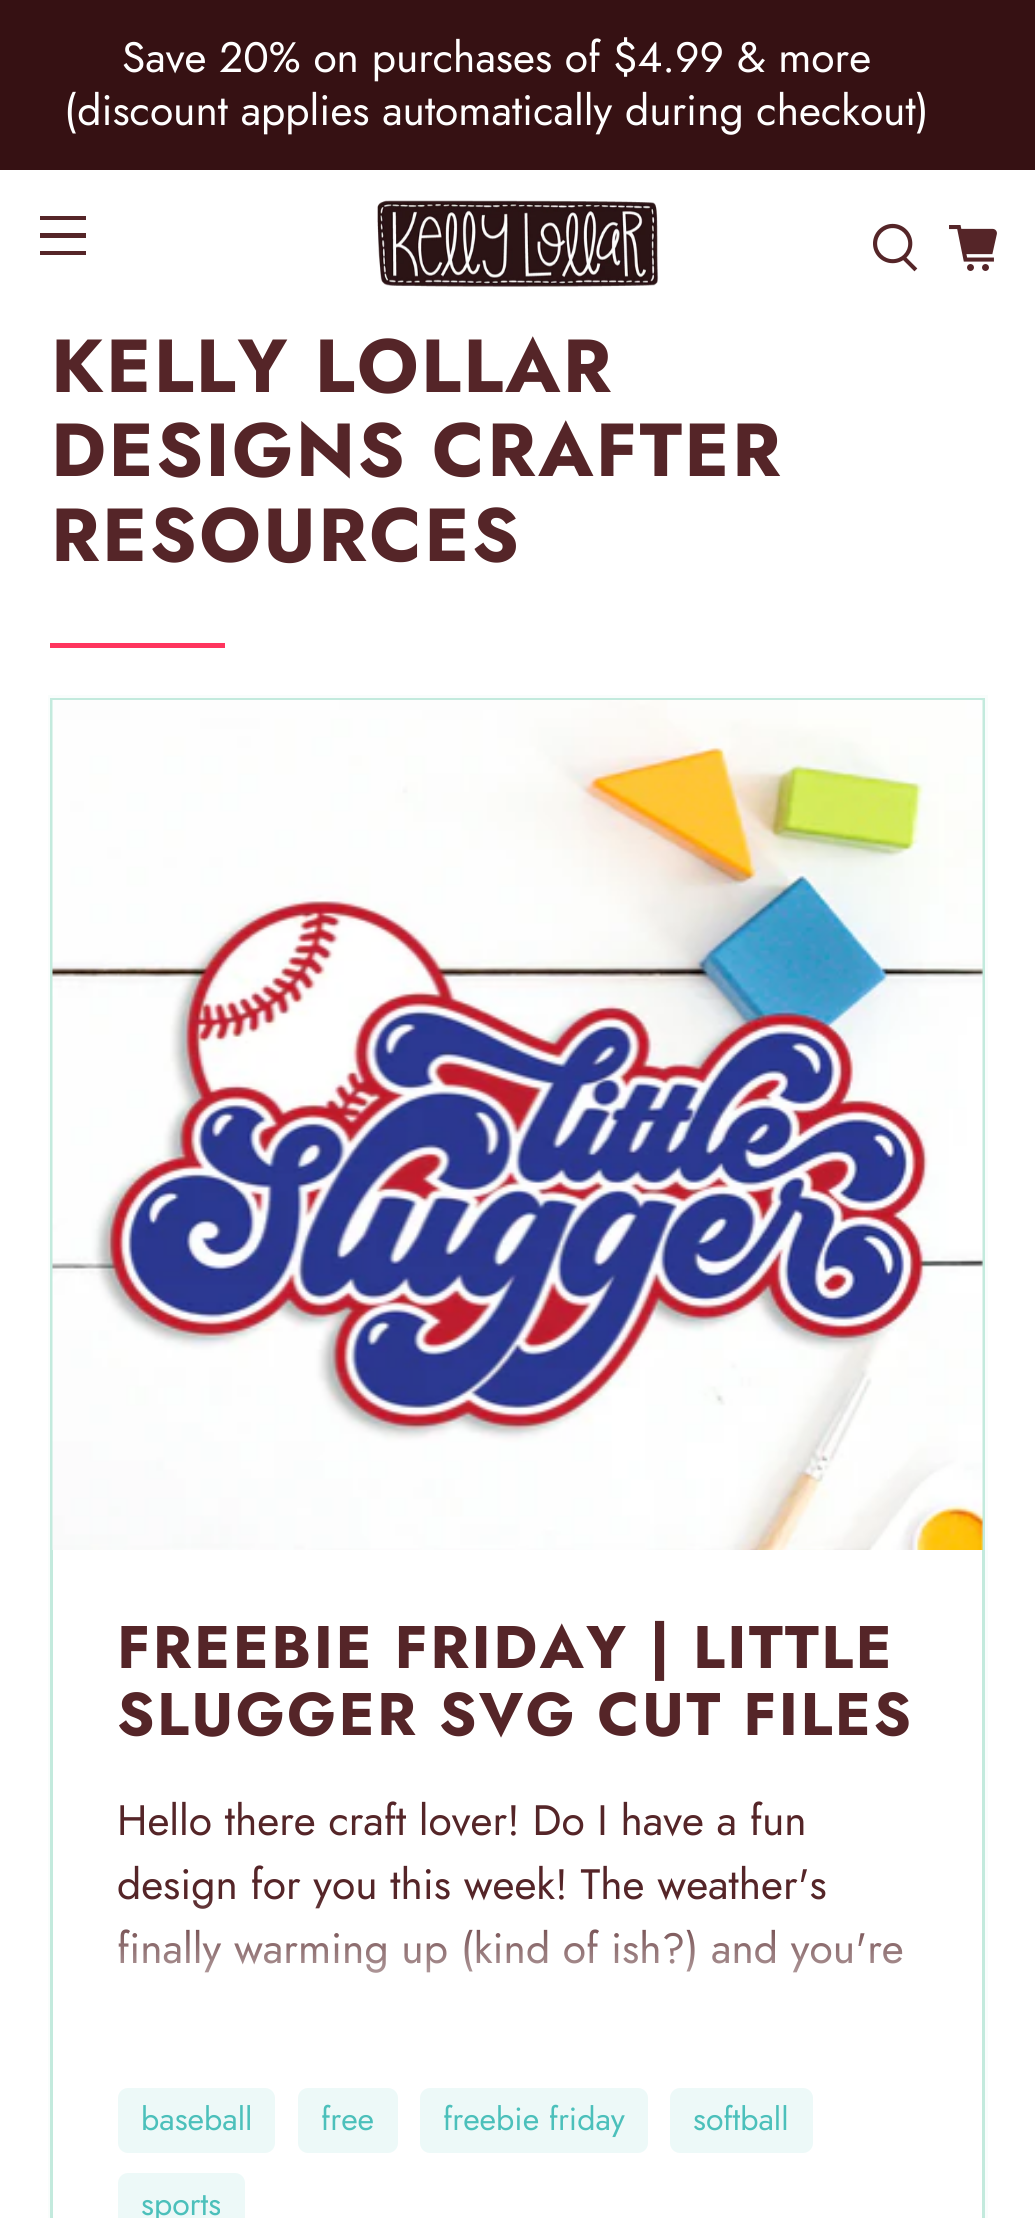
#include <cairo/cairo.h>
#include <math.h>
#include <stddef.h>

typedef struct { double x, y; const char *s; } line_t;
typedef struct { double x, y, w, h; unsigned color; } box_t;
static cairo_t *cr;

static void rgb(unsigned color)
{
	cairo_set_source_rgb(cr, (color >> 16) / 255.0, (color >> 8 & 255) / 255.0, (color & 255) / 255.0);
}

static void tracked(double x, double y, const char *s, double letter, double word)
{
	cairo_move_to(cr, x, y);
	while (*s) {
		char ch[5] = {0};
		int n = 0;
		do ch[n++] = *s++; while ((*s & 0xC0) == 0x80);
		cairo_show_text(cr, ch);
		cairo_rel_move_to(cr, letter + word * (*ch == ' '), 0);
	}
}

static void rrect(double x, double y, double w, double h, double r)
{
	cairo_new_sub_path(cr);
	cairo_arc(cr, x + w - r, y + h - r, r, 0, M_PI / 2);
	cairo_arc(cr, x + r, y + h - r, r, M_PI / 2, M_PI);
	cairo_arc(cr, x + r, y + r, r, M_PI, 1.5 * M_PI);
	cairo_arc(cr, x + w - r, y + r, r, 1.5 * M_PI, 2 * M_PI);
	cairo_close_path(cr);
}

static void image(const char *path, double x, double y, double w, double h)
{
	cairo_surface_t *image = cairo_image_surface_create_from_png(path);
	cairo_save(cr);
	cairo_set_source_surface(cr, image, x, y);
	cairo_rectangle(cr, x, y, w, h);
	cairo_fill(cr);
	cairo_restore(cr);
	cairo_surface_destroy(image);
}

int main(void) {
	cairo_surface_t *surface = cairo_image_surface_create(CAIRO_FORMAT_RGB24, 1035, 2218);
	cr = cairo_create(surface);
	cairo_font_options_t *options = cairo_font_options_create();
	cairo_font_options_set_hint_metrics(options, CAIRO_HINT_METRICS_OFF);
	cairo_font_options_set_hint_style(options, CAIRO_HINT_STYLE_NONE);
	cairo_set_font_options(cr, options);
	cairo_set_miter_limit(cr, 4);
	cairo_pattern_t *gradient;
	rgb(0xffffff);
	cairo_paint(cr);
	{
		static const box_t items[] = {
			{0, 0, 1035, 170, 0x361113},
			{40, 216, 46, 4, 0x552528},
			{40, 233, 46, 5, 0x552528},
			{40, 251, 46, 4, 0x552528},
		};
		for (size_t i = 0; i < sizeof items / sizeof *items; i++) {
			rgb(items[i].color);
			cairo_rectangle(cr, items[i].x, items[i].y, items[i].w, items[i].h);
			cairo_fill(cr);
		}
	}
	image("img/1.png", 377, 200, 282, 87);
	image("img/2.png", 873, 223, 45, 49);
	image("img/3.png", 949, 225, 48, 46);
	rgb(0xff355e);
	cairo_rectangle(cr, 50, 643, 175, 5);
	cairo_fill(cr);
	cairo_rectangle(cr, 49.5, 696.5, 937, 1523);
	rgb(0xf9fdfc);
	cairo_set_line_width(cr, 3);
	cairo_stroke(cr);
	cairo_rectangle(cr, 51.5, 699.5, 932, 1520);
	rgb(0xc3eadd);
	cairo_stroke(cr);
	image("img/4.png", 52, 700, 931, 850);
	rgb(0xedf9f8);
	rrect(118, 2088, 157, 65, 10);
	cairo_fill(cr);
	rrect(298, 2088, 100, 65, 10);
	cairo_fill(cr);
	rrect(420, 2088, 228, 65, 10);
	cairo_fill(cr);
	rrect(670, 2088, 143, 65, 10);
	cairo_fill(cr);
	rrect(118, 2173, 127, 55, 10);
	cairo_fill(cr);
	cairo_select_font_face(cr, "Jost", CAIRO_FONT_SLANT_NORMAL, CAIRO_FONT_WEIGHT_NORMAL);
	cairo_set_font_size(cr, 42.5);
	rgb(0xffffff);
	cairo_move_to(cr, 122, 72);
	cairo_show_text(cr, "Save 20% on purchases of $4.99 & more");
	cairo_move_to(cr, 64, 125);
	cairo_show_text(cr, "(discount applies automatically during checkout)");
	cairo_select_font_face(cr, "Jost", CAIRO_FONT_SLANT_NORMAL, CAIRO_FONT_WEIGHT_BOLD);
	cairo_set_font_size(cr, 75);
	rgb(0x552528);
	{
		static const line_t items[] = {
			{51, 392, "KELLY LOLLAR"},
			{51, 476, "DESIGNS CRAFTER"},
			{51, 561, "RESOURCES"},
		};
		for (size_t i = 0; i < sizeof items / sizeof *items; i++) {
			tracked(items[i].x, items[i].y, items[i].s, 2.5, 0);
		}
	}
	cairo_set_font_size(cr, 60);
	tracked(117, 1668, "FREEBIE FRIDAY | LITTLE", 2.5, 0);
	tracked(117, 1735, "SLUGGER SVG CUT FILES", 2.5, 0);
	cairo_select_font_face(cr, "Jost", CAIRO_FONT_SLANT_NORMAL, CAIRO_FONT_WEIGHT_NORMAL);
	cairo_set_font_size(cr, 42.5);
	{
		static const line_t items[] = {
			{117, 1835, "Hello there craft lover! Do I have a fun"},
			{117, 1899, "design for you this week! The weather's"},
			{117, 1963, "finally warming up (kind of ish?) and you're"},
		};
		for (size_t i = 0; i < sizeof items / sizeof *items; i++) {
			cairo_move_to(cr, items[i].x, items[i].y);
			cairo_show_text(cr, items[i].s);
		}
	}
	gradient = cairo_pattern_create_linear(518, 1895, 518, 2045);
	cairo_pattern_add_color_stop_rgba(gradient, 0, 1, 1, 1, 0);
	cairo_pattern_add_color_stop_rgba(gradient, 1, 1, 1, 1, 1);
	cairo_set_source(cr, gradient);
	cairo_pattern_destroy(gradient);
	cairo_rectangle(cr, 118, 1898, 785, 75);
	cairo_fill(cr);
	cairo_set_font_size(cr, 32);
	rgb(0x4cc0bb);
	{
		static const line_t items[] = {
			{141, 2130, "baseball"},
			{321, 2130, "free"},
			{443, 2130, "freebie friday"},
			{693, 2130, "softball"},
			{141, 2215, "sports"},
		};
		for (size_t i = 0; i < sizeof items / sizeof *items; i++) {
			cairo_move_to(cr, items[i].x, items[i].y);
			cairo_show_text(cr, items[i].s);
		}
	}
	cairo_surface_write_to_png(surface, "page.png");
	cairo_font_options_destroy(options);
	cairo_destroy(cr);
	cairo_surface_destroy(surface);
	return 0;
}
